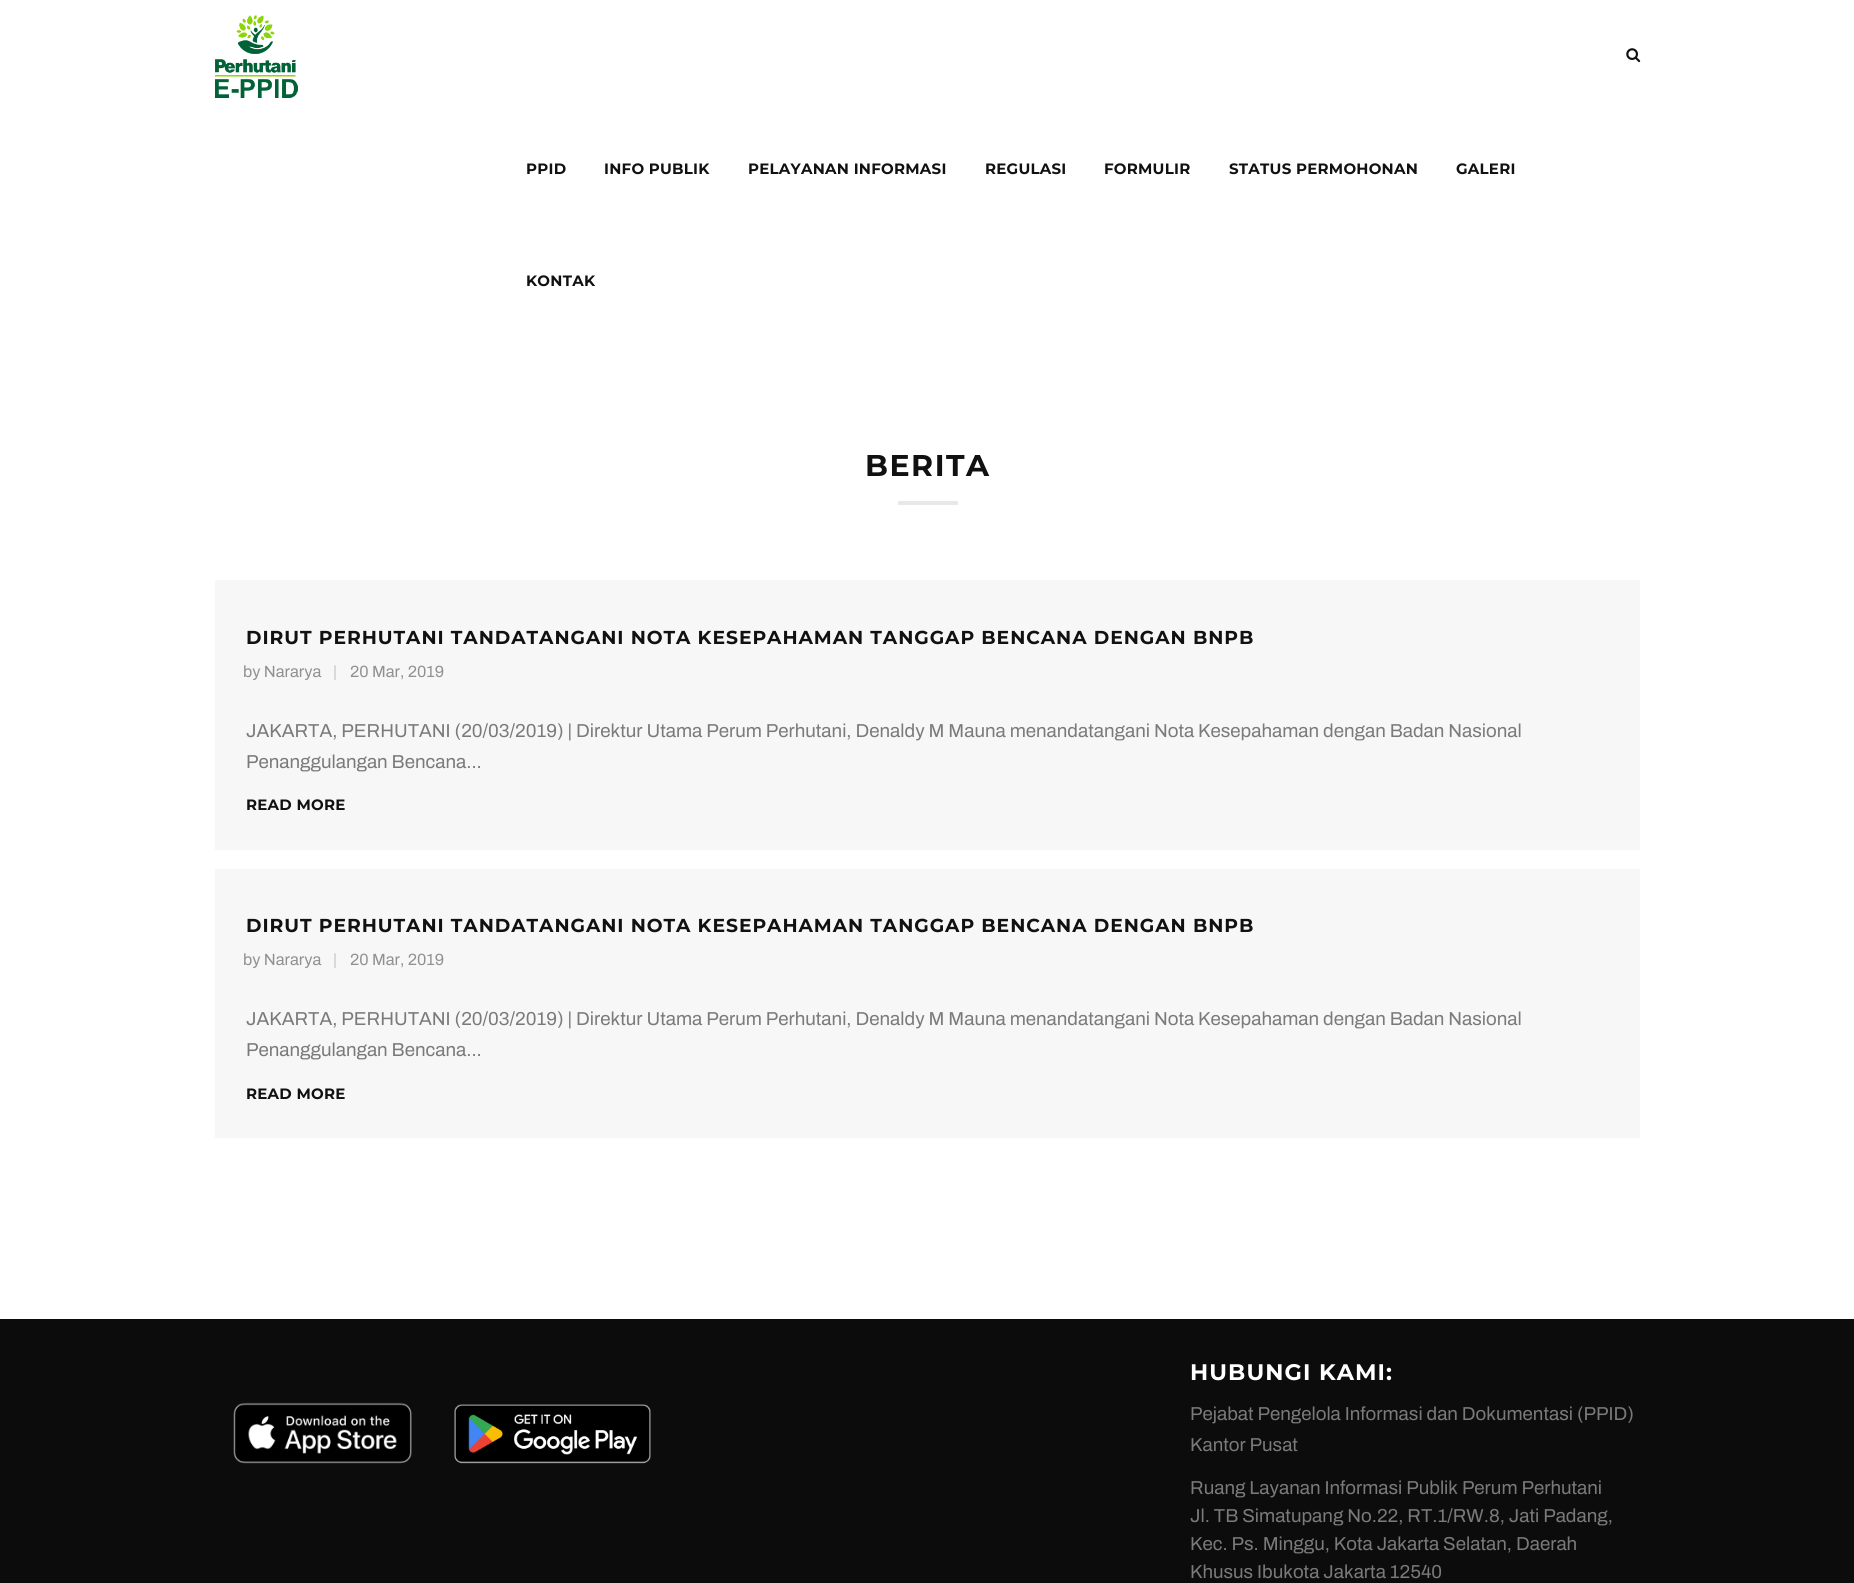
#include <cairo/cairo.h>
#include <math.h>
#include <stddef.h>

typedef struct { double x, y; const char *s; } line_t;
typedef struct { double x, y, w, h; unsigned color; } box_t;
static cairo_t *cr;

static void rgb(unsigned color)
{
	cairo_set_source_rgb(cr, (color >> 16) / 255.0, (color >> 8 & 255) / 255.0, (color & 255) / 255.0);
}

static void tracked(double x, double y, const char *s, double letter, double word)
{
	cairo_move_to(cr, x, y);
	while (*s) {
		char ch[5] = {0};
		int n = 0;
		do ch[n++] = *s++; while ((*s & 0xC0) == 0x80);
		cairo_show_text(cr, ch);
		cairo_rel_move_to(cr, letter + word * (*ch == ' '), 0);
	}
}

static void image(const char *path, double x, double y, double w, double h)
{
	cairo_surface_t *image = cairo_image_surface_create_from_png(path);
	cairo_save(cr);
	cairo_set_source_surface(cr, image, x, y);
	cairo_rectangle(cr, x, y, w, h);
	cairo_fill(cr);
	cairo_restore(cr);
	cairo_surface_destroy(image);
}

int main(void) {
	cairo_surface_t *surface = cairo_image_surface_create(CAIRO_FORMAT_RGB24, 1854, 1583);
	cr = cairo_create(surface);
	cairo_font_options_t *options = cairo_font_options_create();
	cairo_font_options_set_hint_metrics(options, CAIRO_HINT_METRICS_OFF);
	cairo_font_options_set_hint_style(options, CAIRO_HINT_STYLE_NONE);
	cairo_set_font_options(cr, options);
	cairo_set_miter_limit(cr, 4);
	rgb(0xffffff);
	cairo_paint(cr);
	image("img/1.png", 215, 15, 83, 83);
	image("img/2.png", 1626, 48, 15, 15);
	{
		static const box_t items[] = {
			{898, 501, 60, 4, 0xe8e8e8},
			{215, 580, 1425, 270, 0xf7f7f7},
			{215, 869, 1425, 269, 0xf7f7f7},
			{0, 1319, 1854, 264, 0x0c0c0c},
		};
		for (size_t i = 0; i < sizeof items / sizeof *items; i++) {
			rgb(items[i].color);
			cairo_rectangle(cr, items[i].x, items[i].y, items[i].w, items[i].h);
			cairo_fill(cr);
		}
	}
	image("img/3.png", 233, 1402, 179, 62);
	image("img/4.png", 454, 1404, 197, 60);
	cairo_select_font_face(cr, "Montserrat", CAIRO_FONT_SLANT_NORMAL, CAIRO_FONT_WEIGHT_BOLD);
	cairo_set_font_size(cr, 15);
	rgb(0x111111);
	{
		static const line_t items[] = {
			{526, 174, "PPID"},
			{604, 174, "INFO PUBLIK"},
			{748, 174, "PELAYANAN INFORMASI"},
			{985, 174, "REGULASI"},
			{1104, 174, "FORMULIR"},
			{1229, 174, "STATUS PERMOHONAN"},
			{1456, 174, "GALERI"},
			{526, 286, "KONTAK"},
		};
		for (size_t i = 0; i < sizeof items / sizeof *items; i++) {
			tracked(items[i].x, items[i].y, items[i].s, 0.25, 0);
		}
	}
	cairo_set_font_size(cr, 30);
	tracked(865, 476, "BERITA", 1.5, 0);
	cairo_set_font_size(cr, 18.75);
	tracked(246, 644, "DIRUT PERHUTANI TANDATANGANI NOTA KESEPAHAMAN TANGGAP BENCANA DENGAN BNPB", 0.95, 0);
	cairo_select_font_face(cr, "Archivo", CAIRO_FONT_SLANT_NORMAL, CAIRO_FONT_WEIGHT_NORMAL);
	cairo_set_font_size(cr, 16.25);
	rgb(0x919191);
	cairo_move_to(cr, 243, 677);
	cairo_show_text(cr, "by Nararya");
	rgb(0xc4c4c4);
	cairo_move_to(cr, 333, 677);
	cairo_show_text(cr, "|");
	rgb(0x919191);
	cairo_move_to(cr, 350, 677);
	cairo_show_text(cr, "20 Mar, 2019");
	cairo_set_font_size(cr, 18.75);
	rgb(0x7a7a7a);
	cairo_move_to(cr, 246, 737);
	cairo_show_text(cr, "JAKARTA, PERHUTANI (20/03/2019) | Direktur Utama Perum Perhutani, Denaldy M Mauna menandatangani Nota Kesepahaman dengan Badan Nasional");
	cairo_move_to(cr, 246, 768);
	cairo_show_text(cr, "Penanggulangan Bencana...");
	cairo_select_font_face(cr, "Montserrat", CAIRO_FONT_SLANT_NORMAL, CAIRO_FONT_WEIGHT_BOLD);
	cairo_set_font_size(cr, 15);
	rgb(0x111111);
	tracked(246, 810, "READ MORE", 0.25, 0);
	cairo_set_font_size(cr, 18.75);
	tracked(246, 932, "DIRUT PERHUTANI TANDATANGANI NOTA KESEPAHAMAN TANGGAP BENCANA DENGAN BNPB", 0.95, 0);
	cairo_select_font_face(cr, "Archivo", CAIRO_FONT_SLANT_NORMAL, CAIRO_FONT_WEIGHT_NORMAL);
	cairo_set_font_size(cr, 16.25);
	rgb(0x919191);
	cairo_move_to(cr, 243, 965);
	cairo_show_text(cr, "by Nararya");
	rgb(0xc4c4c4);
	cairo_move_to(cr, 333, 965);
	cairo_show_text(cr, "|");
	rgb(0x919191);
	cairo_move_to(cr, 350, 965);
	cairo_show_text(cr, "20 Mar, 2019");
	cairo_set_font_size(cr, 18.75);
	rgb(0x7a7a7a);
	cairo_move_to(cr, 246, 1025);
	cairo_show_text(cr, "JAKARTA, PERHUTANI (20/03/2019) | Direktur Utama Perum Perhutani, Denaldy M Mauna menandatangani Nota Kesepahaman dengan Badan Nasional");
	cairo_move_to(cr, 246, 1056);
	cairo_show_text(cr, "Penanggulangan Bencana...");
	cairo_select_font_face(cr, "Montserrat", CAIRO_FONT_SLANT_NORMAL, CAIRO_FONT_WEIGHT_BOLD);
	cairo_set_font_size(cr, 15);
	rgb(0x111111);
	tracked(246, 1099, "READ MORE", 0.25, 0);
	cairo_set_font_size(cr, 22.5);
	rgb(0xffffff);
	tracked(1190, 1380, "HUBUNGI KAMI:", 1.1, 0);
	cairo_select_font_face(cr, "Archivo", CAIRO_FONT_SLANT_NORMAL, CAIRO_FONT_WEIGHT_NORMAL);
	cairo_set_font_size(cr, 18.75);
	rgb(0x7a7a7a);
	{
		static const line_t items[] = {
			{1190, 1420, "Pejabat Pengelola Informasi dan Dokumentasi (PPID)"},
			{1190, 1451, "Kantor Pusat"},
			{1190, 1494, "Ruang Layanan Informasi Publik Perum Perhutani"},
			{1190, 1522, "Jl. TB Simatupang No.22, RT.1/RW.8, Jati Padang,"},
			{1190, 1550, "Kec. Ps. Minggu, Kota Jakarta Selatan, Daerah"},
			{1190, 1578, "Khusus Ibukota Jakarta 12540"},
		};
		for (size_t i = 0; i < sizeof items / sizeof *items; i++) {
			cairo_move_to(cr, items[i].x, items[i].y);
			cairo_show_text(cr, items[i].s);
		}
	}
	cairo_surface_write_to_png(surface, "page.png");
	cairo_font_options_destroy(options);
	cairo_destroy(cr);
	cairo_surface_destroy(surface);
	return 0;
}
